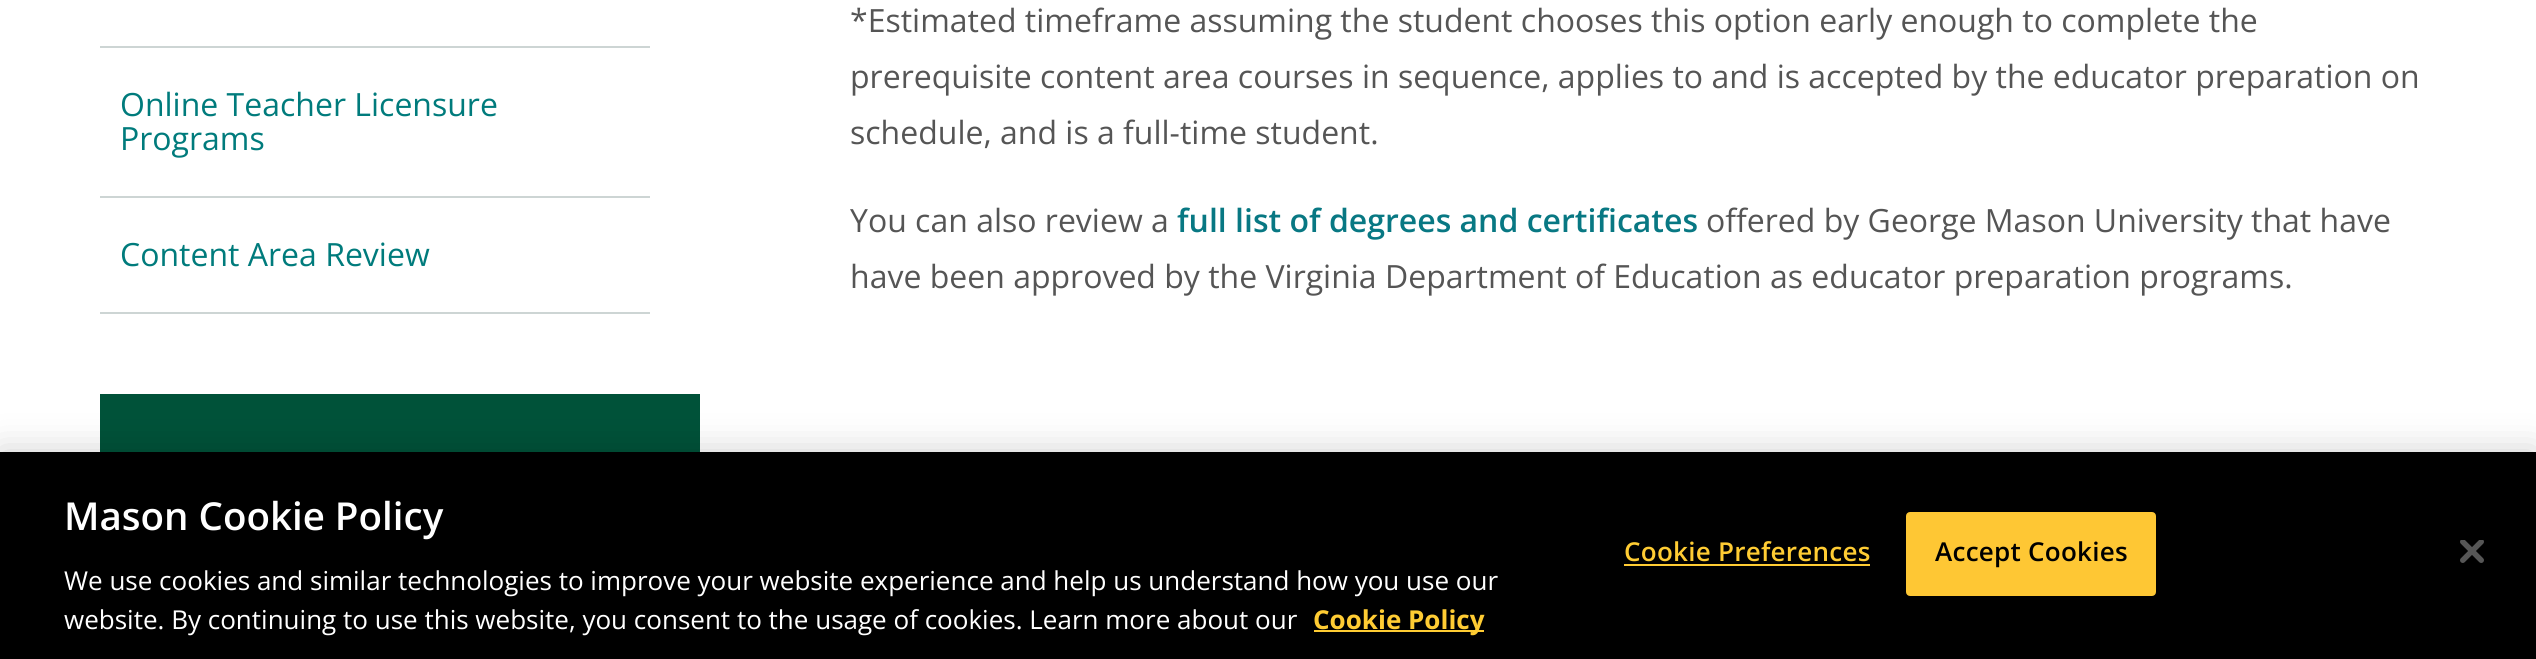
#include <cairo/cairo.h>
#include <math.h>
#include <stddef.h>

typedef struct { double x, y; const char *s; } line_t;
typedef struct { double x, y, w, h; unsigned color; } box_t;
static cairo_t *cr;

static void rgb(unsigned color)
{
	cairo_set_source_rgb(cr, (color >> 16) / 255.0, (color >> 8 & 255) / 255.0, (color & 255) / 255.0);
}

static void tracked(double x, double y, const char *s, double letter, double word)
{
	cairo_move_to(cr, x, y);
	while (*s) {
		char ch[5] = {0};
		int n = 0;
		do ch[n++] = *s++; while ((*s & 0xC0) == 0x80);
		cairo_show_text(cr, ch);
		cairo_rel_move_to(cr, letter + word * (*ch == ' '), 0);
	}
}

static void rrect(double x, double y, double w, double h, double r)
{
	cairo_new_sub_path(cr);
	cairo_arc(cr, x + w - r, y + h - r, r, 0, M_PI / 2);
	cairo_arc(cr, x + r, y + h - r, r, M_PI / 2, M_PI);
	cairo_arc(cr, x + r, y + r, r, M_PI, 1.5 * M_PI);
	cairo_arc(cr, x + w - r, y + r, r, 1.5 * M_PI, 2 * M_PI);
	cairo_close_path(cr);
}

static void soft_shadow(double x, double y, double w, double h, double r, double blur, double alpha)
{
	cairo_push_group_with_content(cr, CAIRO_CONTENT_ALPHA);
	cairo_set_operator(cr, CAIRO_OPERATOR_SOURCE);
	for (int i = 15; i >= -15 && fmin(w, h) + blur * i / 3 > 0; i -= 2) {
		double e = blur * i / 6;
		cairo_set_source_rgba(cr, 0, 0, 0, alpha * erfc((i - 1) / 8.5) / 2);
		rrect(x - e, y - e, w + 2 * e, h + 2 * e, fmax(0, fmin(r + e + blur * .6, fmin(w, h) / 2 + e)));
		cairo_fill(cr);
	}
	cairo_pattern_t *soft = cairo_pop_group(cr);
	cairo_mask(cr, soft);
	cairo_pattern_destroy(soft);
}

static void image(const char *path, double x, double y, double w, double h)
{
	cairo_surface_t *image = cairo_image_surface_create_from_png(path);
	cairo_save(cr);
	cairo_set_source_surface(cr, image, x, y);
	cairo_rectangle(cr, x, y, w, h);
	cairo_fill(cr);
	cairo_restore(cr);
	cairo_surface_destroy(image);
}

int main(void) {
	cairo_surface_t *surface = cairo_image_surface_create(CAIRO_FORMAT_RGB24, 2536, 659);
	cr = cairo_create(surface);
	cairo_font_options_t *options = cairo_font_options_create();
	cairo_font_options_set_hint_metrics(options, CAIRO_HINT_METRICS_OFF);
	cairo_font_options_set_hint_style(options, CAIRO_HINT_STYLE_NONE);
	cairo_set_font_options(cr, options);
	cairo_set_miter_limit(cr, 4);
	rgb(0xffffff);
	cairo_paint(cr);
	{
		static const box_t items[] = {
			{100, 312, 550, 2, 0xcdd5d4},
			{100, 46, 550, 2, 0xcdd5d4},
			{100, 196, 550, 2, 0xcdd5d4},
			{100, 394, 600, 58, 0x005239},
		};
		for (size_t i = 0; i < sizeof items / sizeof *items; i++) {
			rgb(items[i].color);
			cairo_rectangle(cr, items[i].x, items[i].y, items[i].w, items[i].h);
			cairo_fill(cr);
		}
	}
	rgb(0x000000);
	soft_shadow(0, 452, 2536, 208, 0, 18, 0.2);
	{
		static const box_t items[] = {
			{0, 452, 2536, 207, 0x000000},
			{1314, 630, 170, 2, 0xffcc33},
			{1624, 564, 246, 2, 0xffcc33},
		};
		for (size_t i = 0; i < sizeof items / sizeof *items; i++) {
			rgb(items[i].color);
			cairo_rectangle(cr, items[i].x, items[i].y, items[i].w, items[i].h);
			cairo_fill(cr);
		}
	}
	rgb(0xfec734);
	rrect(1907, 513, 248, 82, 3);
	cairo_fill_preserve(cr);
	cairo_stroke(cr);
	image("img/1.png", 2460, 540, 24, 23);
	cairo_select_font_face(cr, "Open Sans", CAIRO_FONT_SLANT_NORMAL, CAIRO_FONT_WEIGHT_NORMAL);
	cairo_set_font_size(cr, 32);
	rgb(0x007b7c);
	{
		static const line_t items[] = {
			{120, 116, "Online Teacher Licensure"},
			{120, 150, "Programs"},
			{120, 266, "Content Area Review"},
		};
		for (size_t i = 0; i < sizeof items / sizeof *items; i++) {
			cairo_move_to(cr, items[i].x, items[i].y);
			cairo_show_text(cr, items[i].s);
		}
	}
	rgb(0x555555);
	{
		static const line_t items[] = {
			{850, 32, "*Estimated timeframe assuming the student chooses this option early enough to complete the"},
			{850, 88, "prerequisite content area courses in sequence, applies to and is accepted by the educator preparation on"},
			{850, 144, "schedule, and is a full-time student."},
			{850, 232, "You can also review a"},
		};
		for (size_t i = 0; i < sizeof items / sizeof *items; i++) {
			cairo_move_to(cr, items[i].x, items[i].y);
			cairo_show_text(cr, items[i].s);
		}
	}
	cairo_select_font_face(cr, "Open Sans SemiBold", CAIRO_FONT_SLANT_NORMAL, CAIRO_FONT_WEIGHT_NORMAL);
	rgb(0x087883);
	cairo_move_to(cr, 1177, 232);
	cairo_show_text(cr, "full list of degrees and certificates");
	cairo_select_font_face(cr, "Open Sans", CAIRO_FONT_SLANT_NORMAL, CAIRO_FONT_WEIGHT_NORMAL);
	rgb(0x555555);
	cairo_move_to(cr, 1706, 232);
	cairo_show_text(cr, "offered by George Mason University that have");
	cairo_move_to(cr, 850, 288);
	cairo_show_text(cr, "have been approved by the Virginia Department of Education as educator preparation programs.");
	cairo_select_font_face(cr, "Open Sans SemiBold", CAIRO_FONT_SLANT_NORMAL, CAIRO_FONT_WEIGHT_NORMAL);
	cairo_set_font_size(cr, 38.5);
	rgb(0xffffff);
	cairo_move_to(cr, 64, 530);
	cairo_show_text(cr, "Mason Cookie Policy");
	cairo_select_font_face(cr, "Open Sans", CAIRO_FONT_SLANT_NORMAL, CAIRO_FONT_WEIGHT_NORMAL);
	cairo_set_font_size(cr, 26.02);
	cairo_move_to(cr, 64, 590);
	cairo_show_text(cr, "We use cookies and similar technologies to improve your website experience and help us understand how you use our");
	cairo_move_to(cr, 64, 629);
	cairo_show_text(cr, "website. By continuing to use this website, you consent to the usage of cookies. Learn more about our");
	cairo_select_font_face(cr, "Open Sans", CAIRO_FONT_SLANT_NORMAL, CAIRO_FONT_WEIGHT_BOLD);
	rgb(0xffcc33);
	cairo_move_to(cr, 1313, 629);
	cairo_show_text(cr, "Cookie Policy");
	cairo_select_font_face(cr, "Open Sans SemiBold", CAIRO_FONT_SLANT_NORMAL, CAIRO_FONT_WEIGHT_NORMAL);
	tracked(1624, 561, "Cookie Preferences", 0.25, 0);
	rgb(0x000000);
	tracked(1935, 561, "Accept Cookies", 0.25, 0);
	cairo_surface_write_to_png(surface, "page.png");
	cairo_font_options_destroy(options);
	cairo_destroy(cr);
	cairo_surface_destroy(surface);
	return 0;
}
